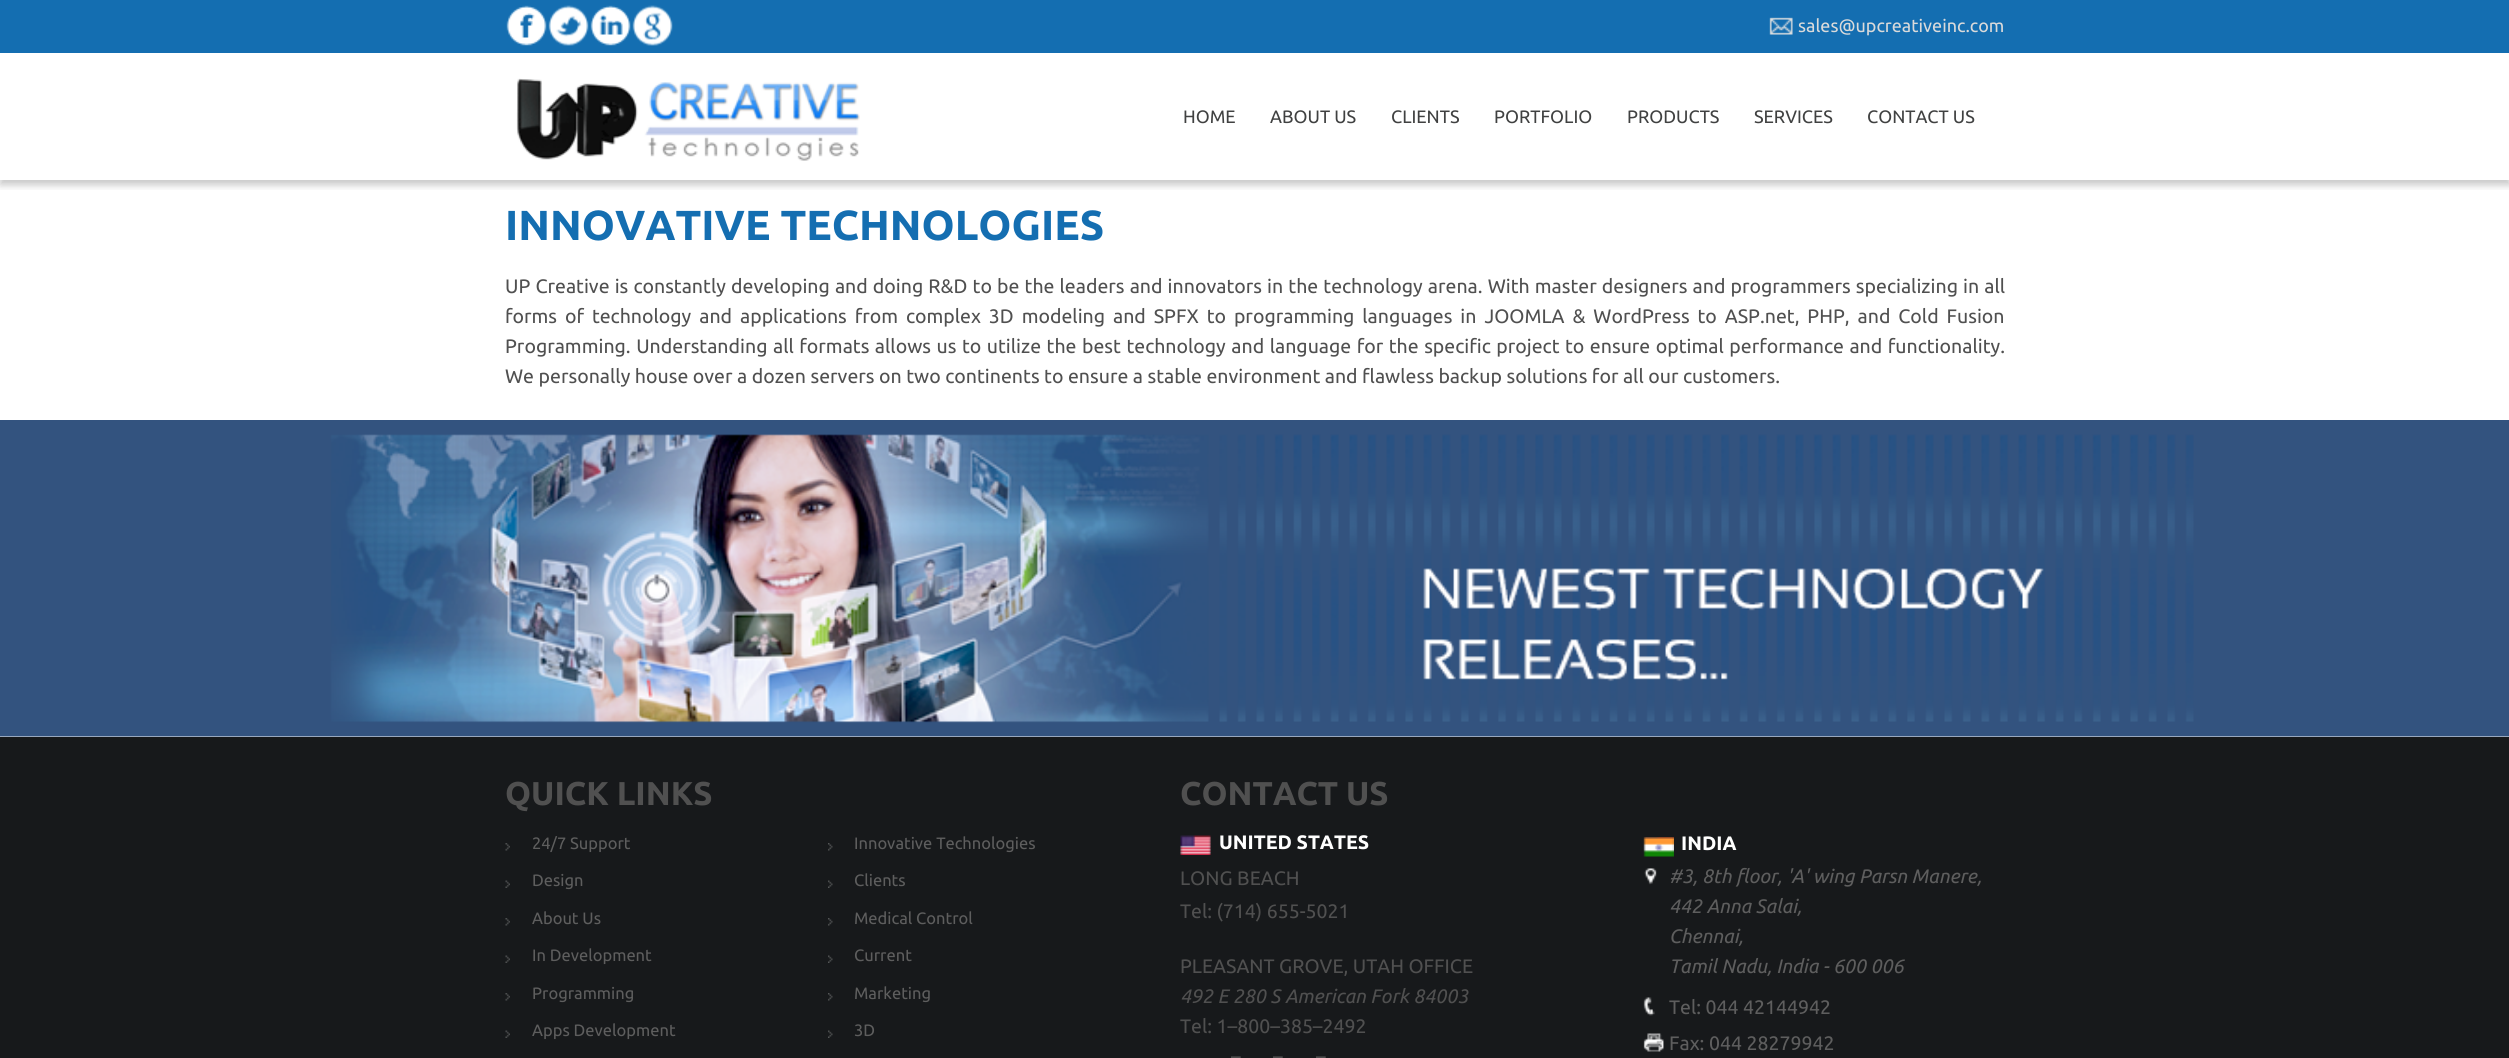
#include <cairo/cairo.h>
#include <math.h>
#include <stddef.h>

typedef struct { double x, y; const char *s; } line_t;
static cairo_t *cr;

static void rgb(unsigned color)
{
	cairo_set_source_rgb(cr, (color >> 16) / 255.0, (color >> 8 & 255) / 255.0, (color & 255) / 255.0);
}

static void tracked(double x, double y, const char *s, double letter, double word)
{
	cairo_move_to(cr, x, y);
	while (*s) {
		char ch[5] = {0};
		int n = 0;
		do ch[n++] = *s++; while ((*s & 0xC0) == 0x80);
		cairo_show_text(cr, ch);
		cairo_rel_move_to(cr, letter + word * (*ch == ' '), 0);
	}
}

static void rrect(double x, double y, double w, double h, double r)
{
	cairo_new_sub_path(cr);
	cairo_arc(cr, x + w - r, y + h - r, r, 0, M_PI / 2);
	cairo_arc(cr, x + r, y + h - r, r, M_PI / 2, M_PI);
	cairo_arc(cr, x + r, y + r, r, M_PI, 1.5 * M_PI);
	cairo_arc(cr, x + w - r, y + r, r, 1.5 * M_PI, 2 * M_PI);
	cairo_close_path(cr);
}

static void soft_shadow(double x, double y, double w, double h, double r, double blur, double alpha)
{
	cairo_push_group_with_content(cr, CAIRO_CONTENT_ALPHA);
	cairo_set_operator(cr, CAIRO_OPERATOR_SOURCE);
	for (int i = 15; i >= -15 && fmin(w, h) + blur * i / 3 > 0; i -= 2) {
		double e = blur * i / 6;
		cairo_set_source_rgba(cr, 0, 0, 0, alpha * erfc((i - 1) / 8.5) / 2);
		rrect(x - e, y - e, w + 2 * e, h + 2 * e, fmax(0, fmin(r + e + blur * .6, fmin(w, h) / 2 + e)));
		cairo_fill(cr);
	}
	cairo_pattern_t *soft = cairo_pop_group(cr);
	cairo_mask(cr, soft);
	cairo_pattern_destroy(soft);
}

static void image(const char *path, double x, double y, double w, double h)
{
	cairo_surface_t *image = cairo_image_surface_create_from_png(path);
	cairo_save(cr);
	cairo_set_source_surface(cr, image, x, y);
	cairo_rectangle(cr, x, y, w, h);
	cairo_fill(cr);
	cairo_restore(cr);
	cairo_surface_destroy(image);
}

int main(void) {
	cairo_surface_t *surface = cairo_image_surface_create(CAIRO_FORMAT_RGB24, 2509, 1058);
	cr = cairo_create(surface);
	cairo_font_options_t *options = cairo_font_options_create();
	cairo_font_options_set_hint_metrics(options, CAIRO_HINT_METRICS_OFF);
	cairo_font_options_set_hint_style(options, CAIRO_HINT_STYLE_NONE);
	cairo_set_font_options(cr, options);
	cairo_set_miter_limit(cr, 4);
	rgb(0xffffff);
	cairo_paint(cr);
	rgb(0x146eb1);
	cairo_rectangle(cr, 0, 0, 2509, 53);
	cairo_fill(cr);
	image("img/1.png", 506, 5, 41, 41);
	image("img/2.png", 548, 5, 41, 41);
	image("img/3.png", 590, 5, 41, 41);
	image("img/4.png", 632, 5, 41, 41);
	image("img/5.png", 1769, 17, 24, 18);
	cairo_save(cr);
	cairo_rectangle(cr, 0, 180, 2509, 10);
	cairo_clip(cr);
	rgb(0x000000);
	soft_shadow(0, 57, 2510, 128, 0, 4, 0.22);
	cairo_restore(cr);
	image("img/6.png", 516, 78, 344, 83);
	image("img/7.png", 0, 420, 2509, 317);
	rgb(0x17191b);
	cairo_rectangle(cr, 0, 737, 2509, 321);
	cairo_fill(cr);
	image("img/8.png", 505, 843, 5, 8);
	image("img/9.png", 828, 843, 5, 8);
	image("img/10.png", 505, 880, 5, 8);
	image("img/11.png", 828, 880, 5, 8);
	image("img/8.png", 505, 918, 5, 8);
	image("img/9.png", 828, 918, 5, 8);
	image("img/10.png", 505, 955, 5, 8);
	image("img/11.png", 828, 955, 5, 8);
	image("img/8.png", 505, 993, 5, 8);
	image("img/9.png", 828, 993, 5, 8);
	image("img/10.png", 505, 1030, 5, 8);
	image("img/11.png", 828, 1030, 5, 8);
	image("img/12.png", 1180, 835, 31, 20);
	image("img/13.png", 1643, 837, 31, 20);
	image("img/14.png", 1644, 868, 13, 17);
	image("img/15.png", 1643, 997, 12, 19);
	image("img/16.png", 1643, 1033, 21, 19);
	cairo_select_font_face(cr, "Ubuntu", CAIRO_FONT_SLANT_NORMAL, CAIRO_FONT_WEIGHT_NORMAL);
	cairo_set_font_size(cr, 18);
	rgb(0xdadada);
	cairo_move_to(cr, 1798, 32);
	cairo_show_text(cr, "sales@upcreativeinc.com");
	rgb(0x404141);
	{
		static const line_t items[] = {
			{1183, 123, "HOME"},
			{1270, 123, "ABOUT US"},
			{1391, 123, "CLIENTS"},
			{1494, 123, "PORTFOLIO"},
			{1627, 123, "PRODUCTS"},
			{1754, 123, "SERVICES"},
			{1867, 123, "CONTACT US"},
		};
		for (size_t i = 0; i < sizeof items / sizeof *items; i++) {
			cairo_move_to(cr, items[i].x, items[i].y);
			cairo_show_text(cr, items[i].s);
		}
	}
	cairo_select_font_face(cr, "Ubuntu", CAIRO_FONT_SLANT_NORMAL, CAIRO_FONT_WEIGHT_BOLD);
	cairo_set_font_size(cr, 42);
	rgb(0x146eb1);
	cairo_move_to(cr, 505, 240);
	cairo_show_text(cr, "INNOVATIVE TECHNOLOGIES");
	cairo_select_font_face(cr, "Ubuntu", CAIRO_FONT_SLANT_NORMAL, CAIRO_FONT_WEIGHT_NORMAL);
	cairo_set_font_size(cr, 19.5);
	rgb(0x505050);
	tracked(505, 293, "UP Creative is constantly developing and doing R&D to be the leaders and innovators in the technology arena. With master designers and programmers specializing in all", 0, 0.6);
	tracked(505, 323, "forms of technology and applications from complex 3D modeling and SPFX to programming languages in JOOMLA & WordPress to ASP.net, PHP, and Cold Fusion", 0, 3.4);
	tracked(505, 353, "Programming. Understanding all formats allows us to utilize the best technology and language for the specific project to ensure optimal performance and functionality.", 0, 1);
	cairo_move_to(cr, 505, 383);
	cairo_show_text(cr, "We personally house over a dozen servers on two continents to ensure a stable environment and flawless backup solutions for all our customers.");
	cairo_select_font_face(cr, "Ubuntu", CAIRO_FONT_SLANT_NORMAL, CAIRO_FONT_WEIGHT_BOLD);
	cairo_set_font_size(cr, 33);
	cairo_move_to(cr, 505, 805);
	cairo_show_text(cr, "QUICK LINKS");
	cairo_select_font_face(cr, "Ubuntu", CAIRO_FONT_SLANT_NORMAL, CAIRO_FONT_WEIGHT_NORMAL);
	cairo_set_font_size(cr, 16.5);
	rgb(0x5e5e5e);
	{
		static const line_t items[] = {
			{532, 849, "24/7 Support"},
			{854, 849, "Innovative Technologies"},
			{532, 886, "Design"},
			{854, 886, "Clients"},
			{532, 924, "About Us"},
			{854, 924, "Medical Control"},
			{532, 961, "In Development"},
			{854, 961, "Current"},
			{532, 999, "Programming"},
			{854, 999, "Marketing"},
			{532, 1036, "Apps Development"},
			{854, 1036, "3D"},
		};
		for (size_t i = 0; i < sizeof items / sizeof *items; i++) {
			cairo_move_to(cr, items[i].x, items[i].y);
			cairo_show_text(cr, items[i].s);
		}
	}
	cairo_select_font_face(cr, "Ubuntu", CAIRO_FONT_SLANT_NORMAL, CAIRO_FONT_WEIGHT_BOLD);
	cairo_set_font_size(cr, 33);
	rgb(0x505050);
	cairo_move_to(cr, 1180, 805);
	cairo_show_text(cr, "CONTACT US");
	cairo_set_font_size(cr, 19.5);
	rgb(0xffffff);
	cairo_move_to(cr, 1219, 849);
	cairo_show_text(cr, "UNITED STATES");
	cairo_select_font_face(cr, "Ubuntu", CAIRO_FONT_SLANT_NORMAL, CAIRO_FONT_WEIGHT_NORMAL);
	rgb(0x505050);
	{
		static const line_t items[] = {
			{1180, 885, "LONG BEACH"},
			{1180, 918, "Tel: (714) 655-5021"},
			{1180, 973, "PLEASANT GROVE, UTAH OFFICE"},
		};
		for (size_t i = 0; i < sizeof items / sizeof *items; i++) {
			cairo_move_to(cr, items[i].x, items[i].y);
			cairo_show_text(cr, items[i].s);
		}
	}
	cairo_select_font_face(cr, "Ubuntu", CAIRO_FONT_SLANT_ITALIC, CAIRO_FONT_WEIGHT_NORMAL);
	cairo_move_to(cr, 1180, 1003);
	cairo_show_text(cr, "492 E 280 S American Fork 84003");
	cairo_select_font_face(cr, "Ubuntu", CAIRO_FONT_SLANT_NORMAL, CAIRO_FONT_WEIGHT_NORMAL);
	{
		static const line_t items[] = {
			{1180, 1033, "Tel: 1–800–385–2492"},
			{1231, 1063, "–"},
			{1273, 1063, "–"},
			{1316, 1063, "–"},
		};
		for (size_t i = 0; i < sizeof items / sizeof *items; i++) {
			cairo_move_to(cr, items[i].x, items[i].y);
			cairo_show_text(cr, items[i].s);
		}
	}
	cairo_select_font_face(cr, "Ubuntu", CAIRO_FONT_SLANT_NORMAL, CAIRO_FONT_WEIGHT_BOLD);
	rgb(0xffffff);
	cairo_move_to(cr, 1681, 850);
	cairo_show_text(cr, "INDIA");
	cairo_select_font_face(cr, "Ubuntu", CAIRO_FONT_SLANT_ITALIC, CAIRO_FONT_WEIGHT_NORMAL);
	rgb(0x5e5e5e);
	{
		static const line_t items[] = {
			{1669, 883, "#3, 8th floor, 'A' wing Parsn Manere,"},
			{1669, 913, "442 Anna Salai,"},
			{1669, 943, "Chennai,"},
			{1669, 973, "Tamil Nadu, India - 600 006"},
		};
		for (size_t i = 0; i < sizeof items / sizeof *items; i++) {
			cairo_move_to(cr, items[i].x, items[i].y);
			cairo_show_text(cr, items[i].s);
		}
	}
	cairo_select_font_face(cr, "Ubuntu", CAIRO_FONT_SLANT_NORMAL, CAIRO_FONT_WEIGHT_NORMAL);
	cairo_move_to(cr, 1669, 1014);
	cairo_show_text(cr, "Tel: 044 42144942");
	cairo_move_to(cr, 1669, 1050);
	cairo_show_text(cr, "Fax: 044 28279942");
	cairo_surface_write_to_png(surface, "page.png");
	cairo_font_options_destroy(options);
	cairo_destroy(cr);
	cairo_surface_destroy(surface);
	return 0;
}
